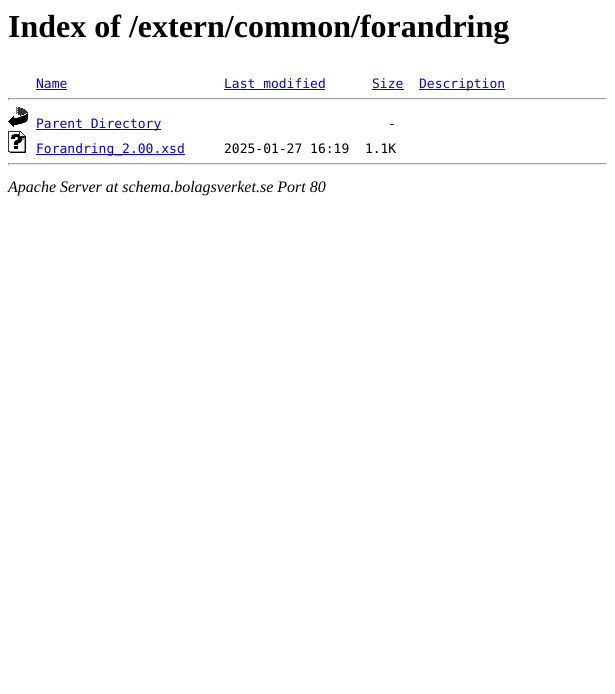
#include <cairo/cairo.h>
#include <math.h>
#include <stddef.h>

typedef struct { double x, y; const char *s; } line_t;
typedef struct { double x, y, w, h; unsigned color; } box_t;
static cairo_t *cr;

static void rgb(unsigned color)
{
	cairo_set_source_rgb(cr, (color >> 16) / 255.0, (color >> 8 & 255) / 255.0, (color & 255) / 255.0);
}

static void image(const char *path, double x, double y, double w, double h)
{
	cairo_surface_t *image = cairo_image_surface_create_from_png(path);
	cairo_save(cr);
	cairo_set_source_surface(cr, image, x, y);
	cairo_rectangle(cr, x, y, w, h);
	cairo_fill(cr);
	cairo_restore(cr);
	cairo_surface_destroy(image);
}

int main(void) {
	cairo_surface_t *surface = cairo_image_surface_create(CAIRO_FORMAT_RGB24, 615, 694);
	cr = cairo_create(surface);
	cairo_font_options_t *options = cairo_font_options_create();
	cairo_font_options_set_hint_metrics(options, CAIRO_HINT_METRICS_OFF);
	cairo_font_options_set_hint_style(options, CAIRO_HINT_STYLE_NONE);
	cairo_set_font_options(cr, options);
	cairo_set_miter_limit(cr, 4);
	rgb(0xffffff);
	cairo_paint(cr);
	{
		static const box_t items[] = {
			{36, 89, 31, 1, 0x0000ee},
			{224, 89, 101, 1, 0x0000ee},
			{372, 89, 32, 1, 0x0000ee},
			{419, 89, 86, 1, 0x0000ee},
			{8, 98, 599, 1, 0x9f9f9f},
			{606, 98, 1, 2, 0xeeeeee},
			{8, 99, 599, 1, 0xeeeeee},
			{8, 98, 1, 2, 0x9f9f9f},
		};
		for (size_t i = 0; i < sizeof items / sizeof *items; i++) {
			rgb(items[i].color);
			cairo_rectangle(cr, items[i].x, items[i].y, items[i].w, items[i].h);
			cairo_fill(cr);
		}
	}
	image("img/1.png", 8, 107, 20, 20);
	rgb(0x0000ee);
	cairo_rectangle(cr, 36, 129, 125, 1);
	cairo_fill(cr);
	image("img/2.png", 8, 131, 18, 22);
	{
		static const box_t items[] = {
			{36, 154, 149, 1, 0x0000ee},
			{8, 163, 599, 1, 0x9f9f9f},
			{606, 163, 1, 2, 0xeeeeee},
			{8, 164, 599, 1, 0xeeeeee},
			{8, 163, 1, 2, 0x9f9f9f},
		};
		for (size_t i = 0; i < sizeof items / sizeof *items; i++) {
			rgb(items[i].color);
			cairo_rectangle(cr, items[i].x, items[i].y, items[i].w, items[i].h);
			cairo_fill(cr);
		}
	}
	cairo_select_font_face(cr, "Liberation Serif", CAIRO_FONT_SLANT_NORMAL, CAIRO_FONT_WEIGHT_BOLD);
	cairo_set_font_size(cr, 32);
	rgb(0x000000);
	cairo_move_to(cr, 8, 37);
	cairo_show_text(cr, "Index of /extern/common/forandring");
	cairo_select_font_face(cr, "DejaVu Sans Mono", CAIRO_FONT_SLANT_NORMAL, CAIRO_FONT_WEIGHT_NORMAL);
	cairo_set_font_size(cr, 13);
	rgb(0x0000ee);
	{
		static const line_t items[] = {
			{36, 88, "Name"},
			{224, 88, "Last modified"},
			{372, 88, "Size"},
			{419, 88, "Description"},
			{36, 128, "Parent Directory"},
		};
		for (size_t i = 0; i < sizeof items / sizeof *items; i++) {
			cairo_move_to(cr, items[i].x, items[i].y);
			cairo_show_text(cr, items[i].s);
		}
	}
	rgb(0x000000);
	cairo_move_to(cr, 388, 128);
	cairo_show_text(cr, "-");
	rgb(0x0000ee);
	cairo_move_to(cr, 36, 153);
	cairo_show_text(cr, "Forandring_2.00.xsd");
	rgb(0x000000);
	cairo_move_to(cr, 224, 153);
	cairo_show_text(cr, "2025-01-27 16:19  1.1K");
	cairo_select_font_face(cr, "Liberation Serif", CAIRO_FONT_SLANT_ITALIC, CAIRO_FONT_WEIGHT_NORMAL);
	cairo_set_font_size(cr, 16);
	cairo_move_to(cr, 8, 192);
	cairo_show_text(cr, "Apache Server at schema.bolagsverket.se Port 80");
	cairo_surface_write_to_png(surface, "page.png");
	cairo_font_options_destroy(options);
	cairo_destroy(cr);
	cairo_surface_destroy(surface);
	return 0;
}
